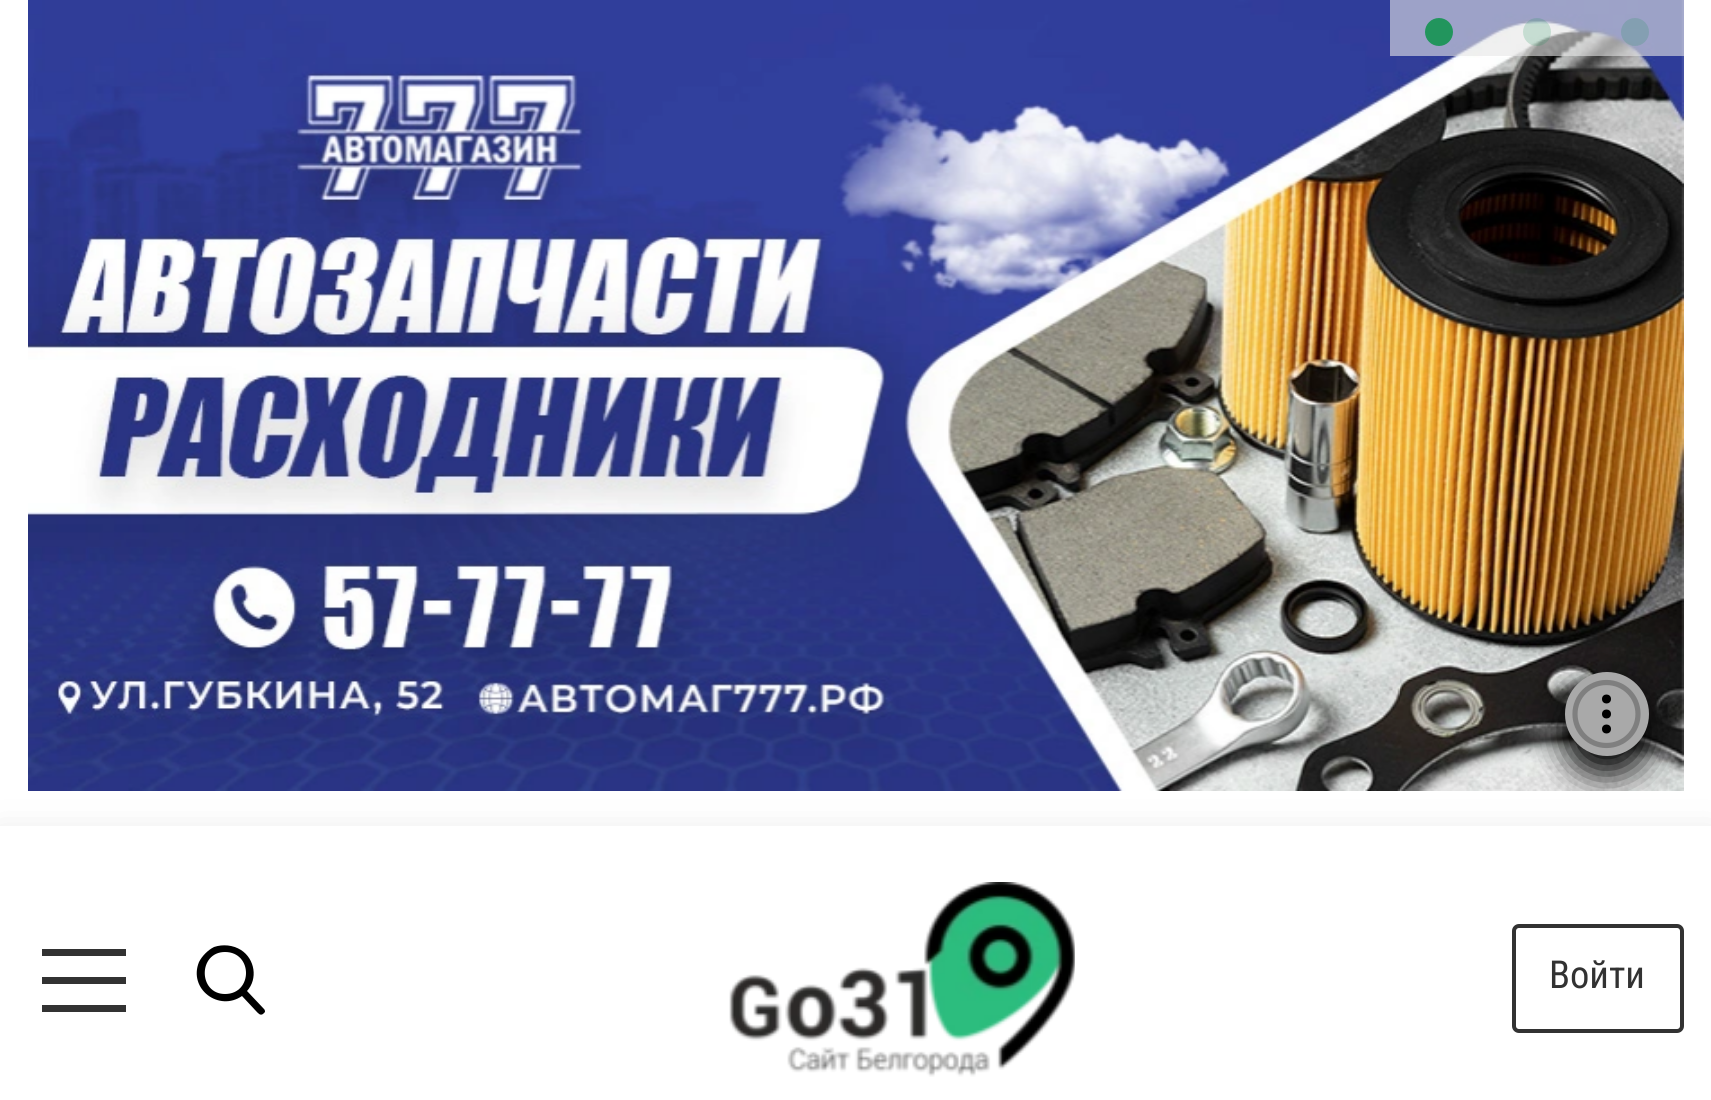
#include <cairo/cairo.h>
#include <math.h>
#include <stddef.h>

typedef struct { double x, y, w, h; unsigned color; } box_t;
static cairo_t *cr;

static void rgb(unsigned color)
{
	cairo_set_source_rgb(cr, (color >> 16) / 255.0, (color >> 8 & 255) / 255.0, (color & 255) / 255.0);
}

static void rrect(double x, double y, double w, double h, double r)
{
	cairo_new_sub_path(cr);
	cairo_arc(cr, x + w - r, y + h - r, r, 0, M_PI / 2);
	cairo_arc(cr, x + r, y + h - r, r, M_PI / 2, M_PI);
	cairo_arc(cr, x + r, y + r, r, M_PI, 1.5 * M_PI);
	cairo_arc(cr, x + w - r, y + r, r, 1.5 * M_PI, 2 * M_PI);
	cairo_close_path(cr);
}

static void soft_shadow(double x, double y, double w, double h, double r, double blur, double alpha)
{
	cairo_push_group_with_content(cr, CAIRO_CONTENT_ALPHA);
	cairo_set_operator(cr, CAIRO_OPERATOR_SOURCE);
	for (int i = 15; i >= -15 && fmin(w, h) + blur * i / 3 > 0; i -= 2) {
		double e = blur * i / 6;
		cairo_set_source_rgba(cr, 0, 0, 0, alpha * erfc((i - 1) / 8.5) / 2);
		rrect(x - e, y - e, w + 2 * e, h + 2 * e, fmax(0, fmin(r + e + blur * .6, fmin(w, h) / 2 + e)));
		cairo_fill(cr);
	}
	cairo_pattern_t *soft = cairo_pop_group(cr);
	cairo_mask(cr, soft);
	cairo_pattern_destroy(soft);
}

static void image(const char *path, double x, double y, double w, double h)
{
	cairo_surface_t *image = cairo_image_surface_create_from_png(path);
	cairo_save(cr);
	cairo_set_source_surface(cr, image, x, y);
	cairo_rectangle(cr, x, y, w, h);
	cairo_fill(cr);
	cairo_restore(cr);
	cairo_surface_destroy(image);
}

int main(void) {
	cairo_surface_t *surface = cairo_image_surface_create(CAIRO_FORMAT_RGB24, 1711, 1100);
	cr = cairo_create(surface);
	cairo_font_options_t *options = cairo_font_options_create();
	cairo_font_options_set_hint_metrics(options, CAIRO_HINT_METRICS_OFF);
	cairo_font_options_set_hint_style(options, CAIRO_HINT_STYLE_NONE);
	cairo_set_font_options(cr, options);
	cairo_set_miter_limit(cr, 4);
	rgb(0xffffff);
	cairo_paint(cr);
	image("img/1.png", 28, 0, 1656, 791);
	cairo_save(cr);
	cairo_rectangle(cr, 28, 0, 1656, 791);
	cairo_clip(cr);
	rgb(0x000000);
	soft_shadow(1565, 690, 84, 84, 42, 17.5, 1);
	cairo_restore(cr);
	rgb(0xa9a9a9);
	cairo_arc(cr, 1607, 714, 42, 0, 2 * M_PI);
	cairo_fill(cr);
	rgb(0x000000);
	cairo_arc(cr, 1606.5, 699, 4.5, 0, 2 * M_PI);
	cairo_fill(cr);
	cairo_arc(cr, 1606.5, 714, 4.5, 0, 2 * M_PI);
	cairo_fill(cr);
	cairo_arc(cr, 1606.5, 729, 4.5, 0, 2 * M_PI);
	cairo_fill(cr);
	cairo_new_path(cr);
	cairo_move_to(cr, 1638, 714);
	cairo_curve_to(cr, 1638, 696.5, 1624, 682.5, 1606.5, 682.5);
	cairo_curve_to(cr, 1589, 682.5, 1575, 696.5, 1575, 714);
	cairo_curve_to(cr, 1575, 731.5, 1589, 745.5, 1606.5, 745.5);
	cairo_curve_to(cr, 1624, 745.5, 1638, 731.5, 1638, 714);
	cairo_close_path(cr);
	rgb(0x7f7f7f);
	cairo_set_line_width(cr, 5.2);
	cairo_stroke(cr);
	cairo_set_source_rgba(cr, 0.902, 0.902, 0.902, 0.6);
	cairo_rectangle(cr, 1390, 0, 294, 56);
	cairo_fill(cr);
	rgb(0x22955d);
	cairo_arc(cr, 1439, 32, 14, 0, 2 * M_PI);
	cairo_fill(cr);
	cairo_set_source_rgba(cr, 0.133, 0.584, 0.365, 0.2);
	cairo_arc(cr, 1537, 32, 14, 0, 2 * M_PI);
	cairo_fill(cr);
	cairo_arc(cr, 1635, 32, 14, 0, 2 * M_PI);
	cairo_fill(cr);
	rgb(0x4e4e4e);
	soft_shadow(0, 837, 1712, 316, 0, 17.5, 0.2);
	{
		static const box_t items[] = {
			{0, 826, 1711, 274, 0xffffff},
			{42, 977, 84, 7, 0x323232},
			{42, 949, 84, 7, 0x323232},
			{42, 1005, 84, 7, 0x323232},
		};
		for (size_t i = 0; i < sizeof items / sizeof *items; i++) {
			rgb(items[i].color);
			cairo_rectangle(cr, items[i].x, items[i].y, items[i].w, items[i].h);
			cairo_fill(cr);
		}
	}
	rgb(0x000000);
	cairo_new_path(cr);
	cairo_move_to(cr, 264, 1009);
	cairo_line_to(cr, 247, 991);
	cairo_curve_to(cr, 258, 979, 255, 959, 241, 950);
	cairo_curve_to(cr, 233, 945, 223, 944, 214, 947);
	cairo_curve_to(cr, 208, 950, 202, 956, 199, 962);
	cairo_curve_to(cr, 188, 989, 219, 1012, 242, 996);
	cairo_line_to(cr, 256, 1011);
	cairo_curve_to(cr, 258, 1013, 260, 1016, 263, 1014);
	cairo_line_to(cr, 265, 1012);
	cairo_curve_to(cr, 265, 1011, 265, 1010, 264, 1009);
	cairo_close_path(cr);
	cairo_move_to(cr, 225, 952);
	cairo_curve_to(cr, 253, 952, 253, 994, 225, 994);
	cairo_curve_to(cr, 198, 994, 198, 952, 225, 952);
	cairo_close_path(cr);
	cairo_fill(cr);
	image("img/2.png", 729, 882, 346, 195);
	rrect(1514, 926, 168, 105, 5);
	rgb(0x323232);
	cairo_set_line_width(cr, 4);
	cairo_stroke(cr);
	cairo_select_font_face(cr, "Roboto Condensed", CAIRO_FONT_SLANT_NORMAL, CAIRO_FONT_WEIGHT_NORMAL);
	cairo_set_font_size(cr, 38.5);
	cairo_move_to(cr, 1549, 988);
	cairo_show_text(cr, "Войти");
	cairo_surface_write_to_png(surface, "page.png");
	cairo_font_options_destroy(options);
	cairo_destroy(cr);
	cairo_surface_destroy(surface);
	return 0;
}
